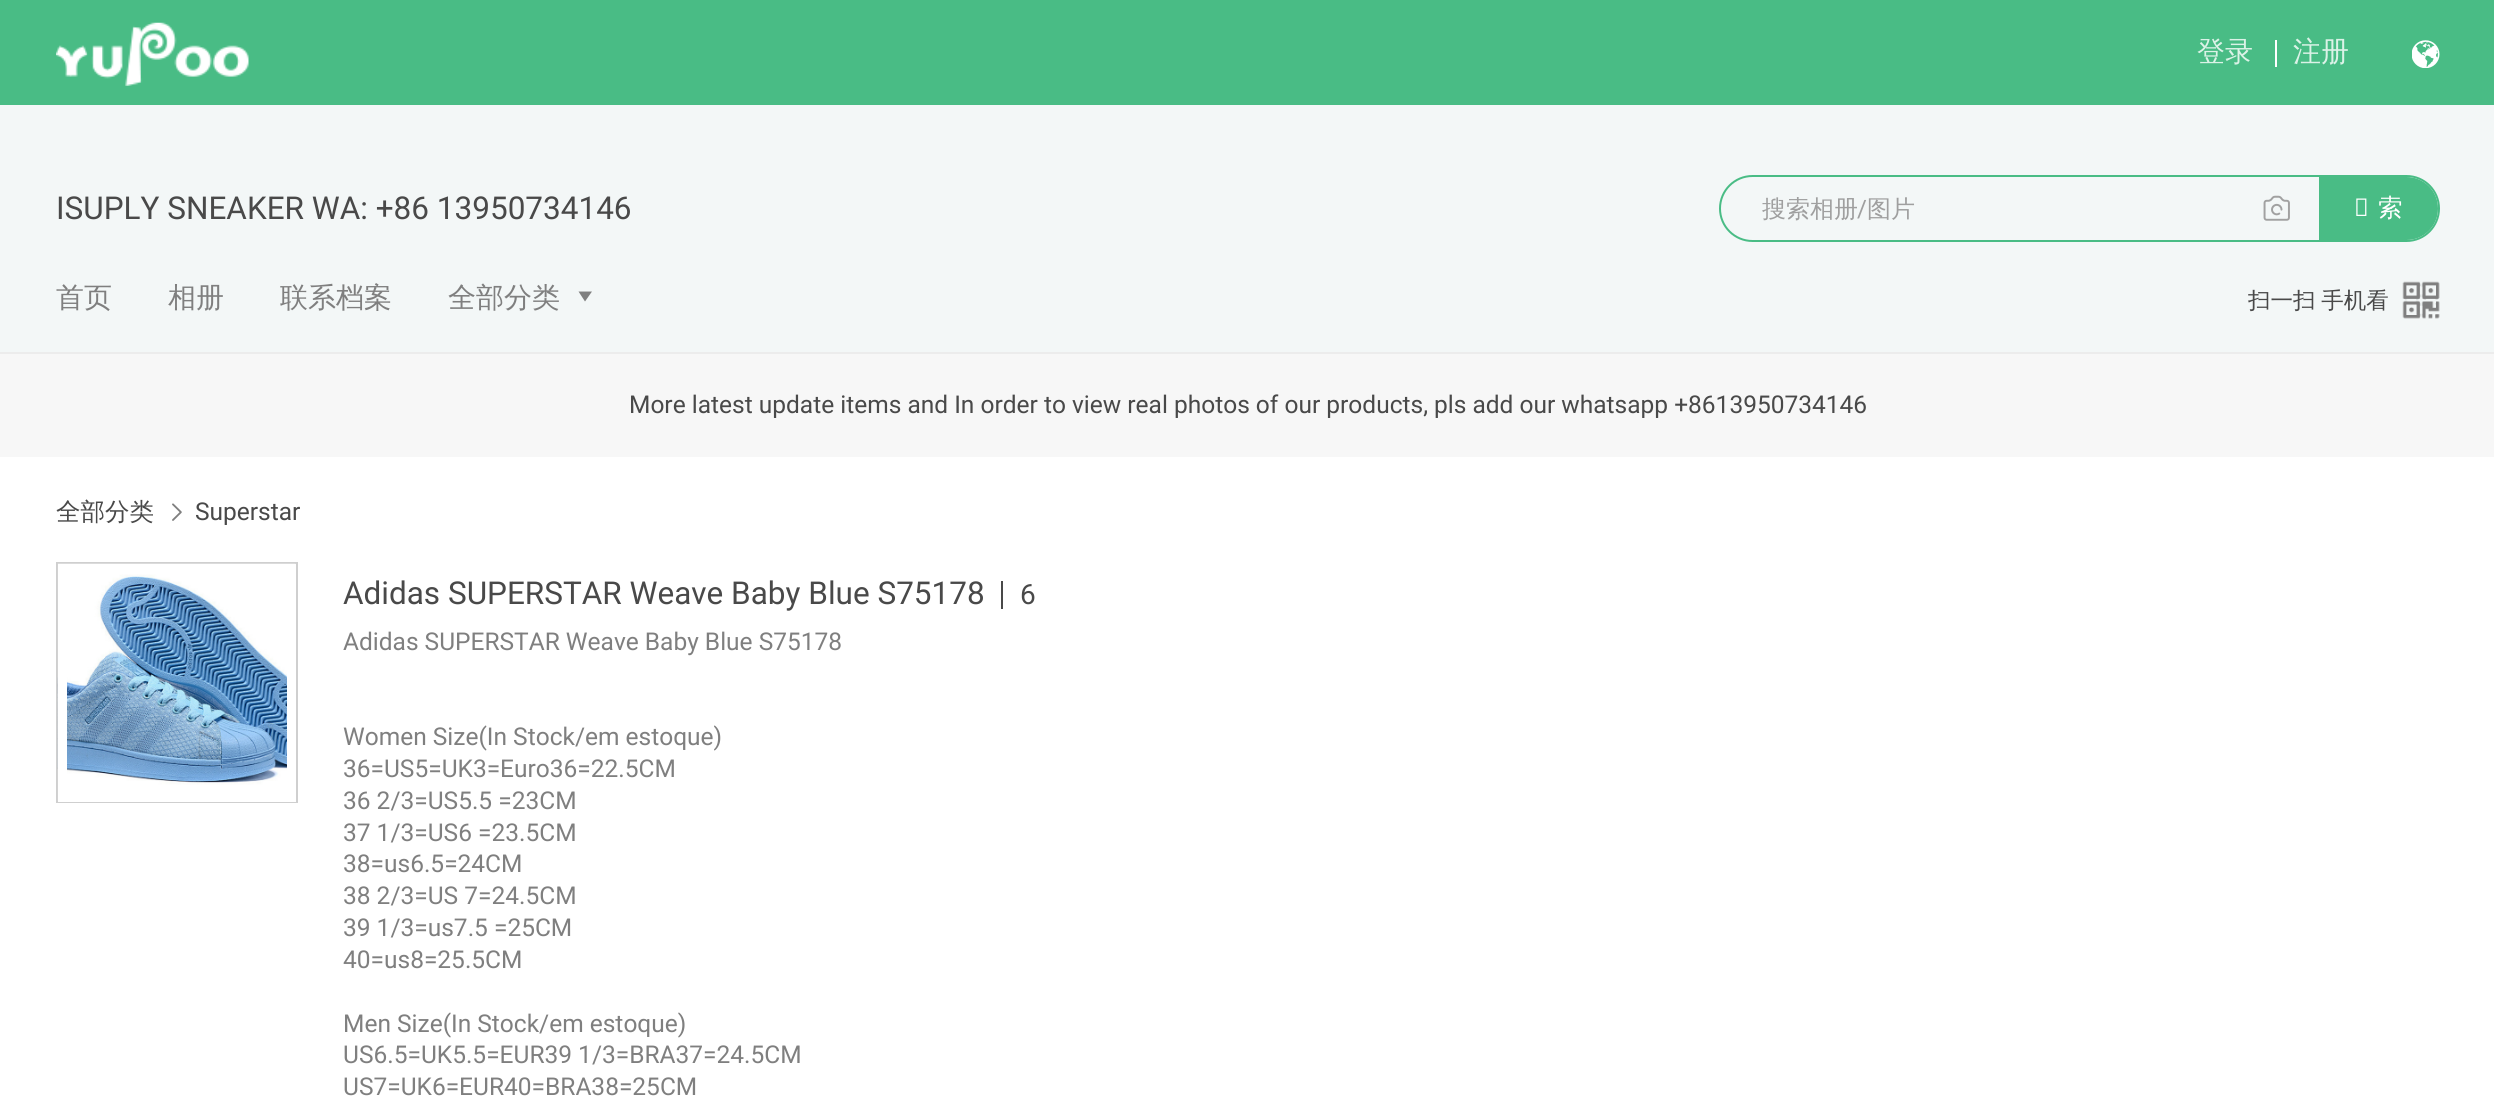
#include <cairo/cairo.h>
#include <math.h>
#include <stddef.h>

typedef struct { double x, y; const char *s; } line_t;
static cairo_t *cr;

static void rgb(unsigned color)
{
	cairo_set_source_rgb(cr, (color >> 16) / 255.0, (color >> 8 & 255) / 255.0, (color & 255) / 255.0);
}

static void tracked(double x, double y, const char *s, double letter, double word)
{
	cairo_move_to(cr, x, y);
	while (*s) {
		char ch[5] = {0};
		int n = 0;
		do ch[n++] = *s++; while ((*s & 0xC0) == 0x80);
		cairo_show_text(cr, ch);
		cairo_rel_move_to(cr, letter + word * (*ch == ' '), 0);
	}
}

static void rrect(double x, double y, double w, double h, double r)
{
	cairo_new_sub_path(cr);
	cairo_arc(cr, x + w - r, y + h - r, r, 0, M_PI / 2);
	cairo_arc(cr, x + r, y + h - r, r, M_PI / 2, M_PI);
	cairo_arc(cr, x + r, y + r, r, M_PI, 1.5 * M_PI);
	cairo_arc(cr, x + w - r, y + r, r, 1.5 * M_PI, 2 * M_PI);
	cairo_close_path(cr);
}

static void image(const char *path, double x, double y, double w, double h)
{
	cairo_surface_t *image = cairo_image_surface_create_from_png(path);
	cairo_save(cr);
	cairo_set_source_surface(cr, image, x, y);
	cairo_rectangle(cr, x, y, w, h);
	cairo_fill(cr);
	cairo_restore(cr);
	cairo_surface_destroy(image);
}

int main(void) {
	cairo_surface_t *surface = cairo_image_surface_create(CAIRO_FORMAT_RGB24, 2494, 1112);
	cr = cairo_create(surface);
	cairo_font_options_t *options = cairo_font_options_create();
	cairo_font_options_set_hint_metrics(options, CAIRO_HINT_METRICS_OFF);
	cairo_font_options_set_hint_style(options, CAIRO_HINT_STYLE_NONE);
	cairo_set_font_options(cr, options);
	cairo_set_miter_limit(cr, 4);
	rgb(0xffffff);
	cairo_paint(cr);
	rgb(0x49bc85);
	cairo_rectangle(cr, 0, 0, 2494, 105);
	cairo_fill(cr);
	image("img/1.png", 56, 22, 193, 64);
	rgb(0xffffff);
	cairo_rectangle(cr, 2275, 40, 2, 27);
	cairo_fill(cr);
	image("img/2.png", 2412, 40, 28, 28);
	rgb(0xf3f7f7);
	cairo_rectangle(cr, 0, 105, 2494, 247);
	cairo_fill(cr);
	rrect(1720, 176, 719, 65, 32.5);
	rgb(0x49bc85);
	cairo_stroke(cr);
	image("img/3.png", 2263, 195, 27, 26);
	cairo_new_path(cr);
	cairo_move_to(cr, 2320, 178);
	cairo_line_to(cr, 2406.5, 178);
	cairo_curve_to(cr, 2423.5, 178, 2437, 191.5, 2437, 208.5);
	cairo_curve_to(cr, 2437, 225.5, 2423.5, 239, 2406.5, 239);
	cairo_line_to(cr, 2320, 239);
	cairo_close_path(cr);
	cairo_fill_preserve(cr);
	cairo_stroke(cr);
	rgb(0x7f7f7f);
	cairo_new_path(cr);
	cairo_move_to(cr, 585, 301.5);
	cairo_line_to(cr, 578.5, 291.5);
	cairo_line_to(cr, 592, 291.5);
	cairo_close_path(cr);
	cairo_fill(cr);
	image("img/4.png", 2402, 281, 38, 38);
	rgb(0xf7f7f7);
	cairo_rectangle(cr, 0, 354, 2494, 103);
	cairo_fill(cr);
	rgb(0xececec);
	cairo_rectangle(cr, 0, 352, 2494, 2);
	cairo_fill(cr);
	image("img/5.png", 172, 503, 10, 18);
	cairo_rectangle(cr, 57, 563, 240, 239);
	rgb(0xcfcfcf);
	cairo_stroke(cr);
	image("img/6.png", 57, 563, 239, 238);
	cairo_rectangle(cr, 62.5, 568.5, 229, 229);
	rgb(0xffffff);
	cairo_set_line_width(cr, 9);
	cairo_stroke(cr);
	rgb(0x494949);
	cairo_rectangle(cr, 1001, 581, 2, 28);
	cairo_fill(cr);
	cairo_select_font_face(cr, "WenQuanYi Zen Hei Medium", CAIRO_FONT_SLANT_NORMAL, CAIRO_FONT_WEIGHT_NORMAL);
	cairo_set_font_size(cr, 28);
	rgb(0xdbf2e7);
	cairo_move_to(cr, 2197, 61);
	cairo_show_text(cr, "登录");
	cairo_move_to(cr, 2293, 61);
	cairo_show_text(cr, "注册");
	cairo_select_font_face(cr, "Roboto", CAIRO_FONT_SLANT_NORMAL, CAIRO_FONT_WEIGHT_NORMAL);
	cairo_set_font_size(cr, 31.5);
	rgb(0x494949);
	cairo_move_to(cr, 56, 219);
	cairo_show_text(cr, "ISUPLY SNEAKER WA: +86 13950734146");
	cairo_select_font_face(cr, "WenQuanYi Zen Hei Medium", CAIRO_FONT_SLANT_NORMAL, CAIRO_FONT_WEIGHT_NORMAL);
	cairo_set_font_size(cr, 24);
	rgb(0x9f9f9f);
	cairo_move_to(cr, 1762, 217);
	cairo_show_text(cr, "搜索相册");
	cairo_select_font_face(cr, "Roboto", CAIRO_FONT_SLANT_NORMAL, CAIRO_FONT_WEIGHT_NORMAL);
	cairo_move_to(cr, 1857, 217);
	cairo_show_text(cr, "/");
	cairo_select_font_face(cr, "WenQuanYi Zen Hei Medium", CAIRO_FONT_SLANT_NORMAL, CAIRO_FONT_WEIGHT_NORMAL);
	cairo_move_to(cr, 1867, 217);
	cairo_show_text(cr, "图片");
	cairo_select_font_face(cr, "Noto Sans", CAIRO_FONT_SLANT_NORMAL, CAIRO_FONT_WEIGHT_NORMAL);
	cairo_set_font_size(cr, 24.5);
	rgb(0xffffff);
	cairo_move_to(cr, 2354, 216);
	cairo_show_text(cr, "搜");
	cairo_select_font_face(cr, "WenQuanYi Zen Hei Medium", CAIRO_FONT_SLANT_NORMAL, CAIRO_FONT_WEIGHT_NORMAL);
	cairo_move_to(cr, 2378, 216);
	cairo_show_text(cr, "索");
	cairo_set_font_size(cr, 28);
	rgb(0x7f7f7f);
	{
		static const line_t items[] = {
			{56, 307, "首页"},
			{168, 307, "相册"},
			{280, 307, "联系档案"},
			{448, 307, "全部分类"},
		};
		for (size_t i = 0; i < sizeof items / sizeof *items; i++) {
			cairo_move_to(cr, items[i].x, items[i].y);
			cairo_show_text(cr, items[i].s);
		}
	}
	cairo_set_font_size(cr, 22.5);
	rgb(0x494949);
	tracked(2248, 308, "扫一扫 手机看", 0, -1);
	cairo_select_font_face(cr, "Roboto", CAIRO_FONT_SLANT_NORMAL, CAIRO_FONT_WEIGHT_NORMAL);
	cairo_set_font_size(cr, 24.5);
	cairo_move_to(cr, 629, 413);
	cairo_show_text(cr, "More latest update items and In order to view real photos of our products, pls add our whatsapp +8613950734146");
	cairo_select_font_face(cr, "WenQuanYi Zen Hei Medium", CAIRO_FONT_SLANT_NORMAL, CAIRO_FONT_WEIGHT_NORMAL);
	cairo_move_to(cr, 56, 520);
	cairo_show_text(cr, "全部分类");
	cairo_select_font_face(cr, "Roboto", CAIRO_FONT_SLANT_NORMAL, CAIRO_FONT_WEIGHT_NORMAL);
	cairo_move_to(cr, 195, 520);
	cairo_show_text(cr, "Superstar");
	cairo_set_font_size(cr, 31.5);
	cairo_move_to(cr, 343, 604);
	cairo_show_text(cr, "Adidas SUPERSTAR Weave Baby Blue S75178");
	cairo_set_font_size(cr, 28);
	cairo_move_to(cr, 1020, 604);
	cairo_show_text(cr, "6");
	cairo_set_font_size(cr, 24.5);
	rgb(0x7f7f7f);
	{
		static const line_t items[] = {
			{343, 650, "Adidas SUPERSTAR Weave Baby Blue S75178"},
			{343, 745, "Women Size(In Stock/em estoque)"},
			{343, 777, "36=US5=UK3=Euro36=22.5CM"},
			{343, 809, "36 2/3=US5.5 =23CM"},
			{343, 841, "37 1/3=US6 =23.5CM"},
			{343, 872, "38=us6.5=24CM"},
			{343, 904, "38 2/3=US 7=24.5CM"},
			{343, 936, "39 1/3=us7.5 =25CM"},
			{343, 968, "40=us8=25.5CM"},
			{343, 1032, "Men Size(In Stock/em estoque)"},
			{343, 1063, "US6.5=UK5.5=EUR39 1/3=BRA37=24.5CM"},
			{343, 1095, "US7=UK6=EUR40=BRA38=25CM"},
		};
		for (size_t i = 0; i < sizeof items / sizeof *items; i++) {
			cairo_move_to(cr, items[i].x, items[i].y);
			cairo_show_text(cr, items[i].s);
		}
	}
	cairo_surface_write_to_png(surface, "page.png");
	cairo_font_options_destroy(options);
	cairo_destroy(cr);
	cairo_surface_destroy(surface);
	return 0;
}
